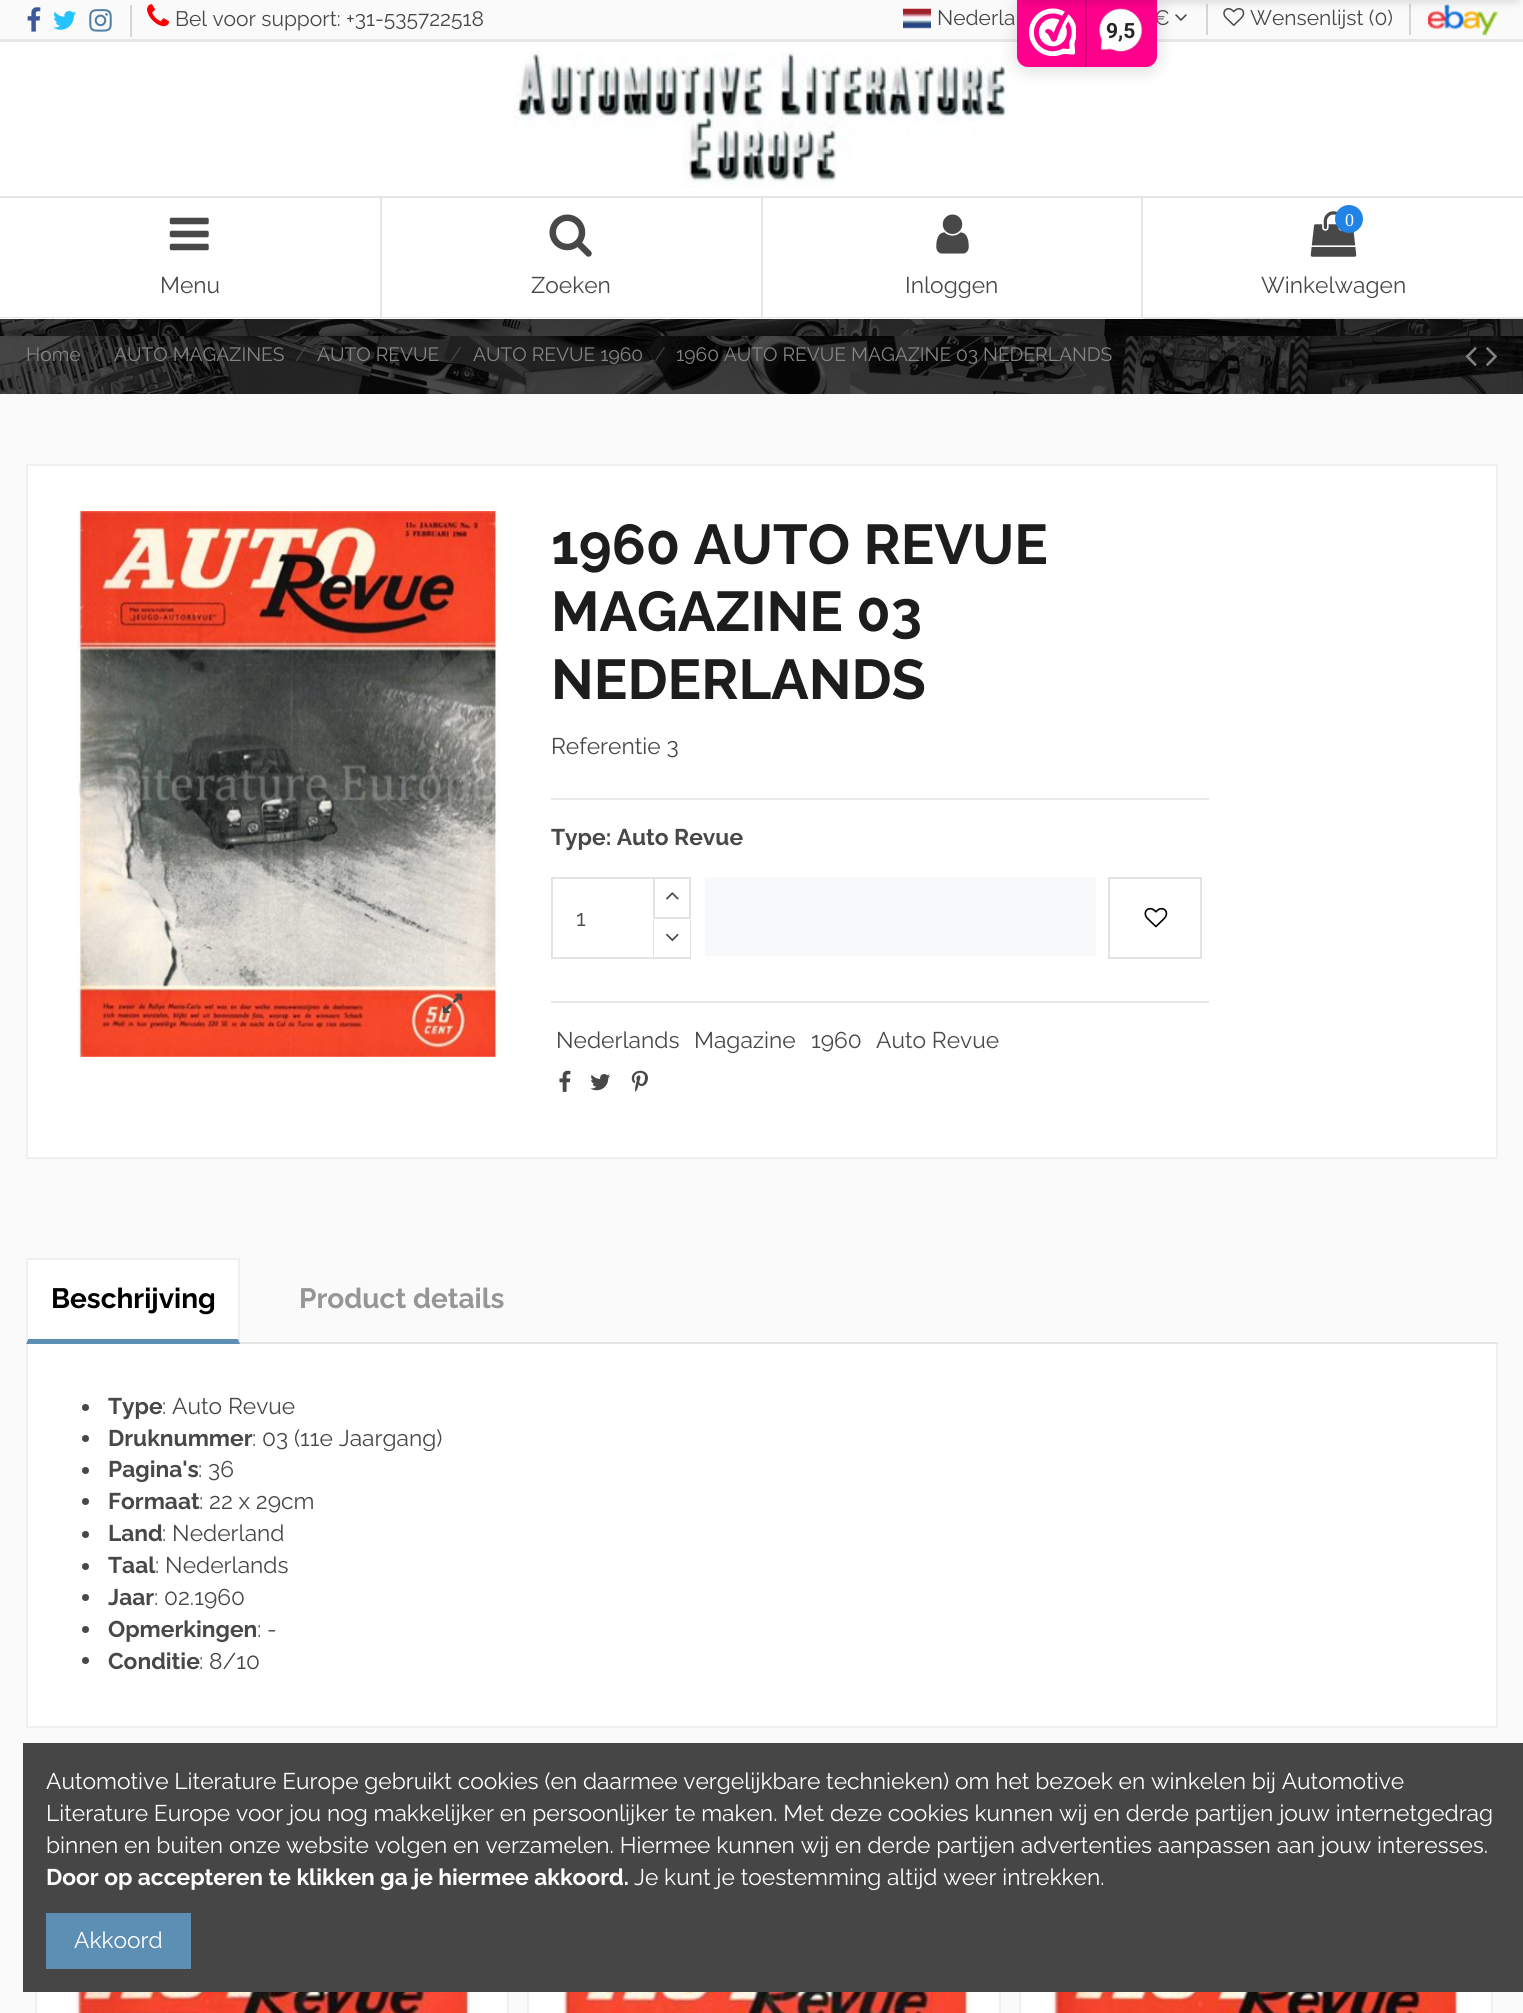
#include <cairo/cairo.h>
#include <math.h>
#include <stddef.h>

typedef struct { double x, y; const char *s; } line_t;
typedef struct { double x, y, w, h; unsigned color; } box_t;
static cairo_t *cr;

static void rgb(unsigned color)
{
	cairo_set_source_rgb(cr, (color >> 16) / 255.0, (color >> 8 & 255) / 255.0, (color & 255) / 255.0);
}

static void rrect(double x, double y, double w, double h, double r)
{
	cairo_new_sub_path(cr);
	cairo_arc(cr, x + w - r, y + h - r, r, 0, M_PI / 2);
	cairo_arc(cr, x + r, y + h - r, r, M_PI / 2, M_PI);
	cairo_arc(cr, x + r, y + r, r, M_PI, 1.5 * M_PI);
	cairo_arc(cr, x + w - r, y + r, r, 1.5 * M_PI, 2 * M_PI);
	cairo_close_path(cr);
}

static void soft_shadow(double x, double y, double w, double h, double r, double blur, double alpha)
{
	cairo_push_group_with_content(cr, CAIRO_CONTENT_ALPHA);
	cairo_set_operator(cr, CAIRO_OPERATOR_SOURCE);
	for (int i = 15; i >= -15 && fmin(w, h) + blur * i / 3 > 0; i -= 2) {
		double e = blur * i / 6;
		cairo_set_source_rgba(cr, 0, 0, 0, alpha * erfc((i - 1) / 8.5) / 2);
		rrect(x - e, y - e, w + 2 * e, h + 2 * e, fmax(0, fmin(r + e + blur * .6, fmin(w, h) / 2 + e)));
		cairo_fill(cr);
	}
	cairo_pattern_t *soft = cairo_pop_group(cr);
	cairo_mask(cr, soft);
	cairo_pattern_destroy(soft);
}

static void image(const char *path, double x, double y, double w, double h)
{
	cairo_surface_t *image = cairo_image_surface_create_from_png(path);
	cairo_save(cr);
	cairo_set_source_surface(cr, image, x, y);
	cairo_rectangle(cr, x, y, w, h);
	cairo_fill(cr);
	cairo_restore(cr);
	cairo_surface_destroy(image);
}

int main(void) {
	cairo_surface_t *surface = cairo_image_surface_create(CAIRO_FORMAT_RGB24, 1523, 2013);
	cr = cairo_create(surface);
	cairo_font_options_t *options = cairo_font_options_create();
	cairo_font_options_set_hint_metrics(options, CAIRO_HINT_METRICS_OFF);
	cairo_font_options_set_hint_style(options, CAIRO_HINT_STYLE_NONE);
	cairo_set_font_options(cr, options);
	cairo_set_miter_limit(cr, 4);
	rgb(0xfafafa);
	cairo_paint(cr);
	image("img/14.png", 0, 319, 1523, 75);
	image("img/15.png", 1465, 347, 12, 19);
	image("img/16.png", 1486, 347, 11, 19);
	rgb(0x000000);
	soft_shadow(0, 9, 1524, 318, 0, 22, 0.18);
	rgb(0xffffff);
	cairo_rectangle(cr, 0, 42, 1523, 277);
	cairo_fill(cr);
	rgb(0xfafafa);
	cairo_rectangle(cr, 0, 0, 1523, 39);
	cairo_fill(cr);
	image("img/1.png", 27, 7, 14, 25);
	image("img/2.png", 53, 11, 24, 19);
	image("img/3.png", 89, 9, 23, 23);
	rgb(0xd6d6d6);
	cairo_rectangle(cr, 130, 5, 2, 32);
	cairo_fill(cr);
	image("img/4.png", 147, 4, 22, 23);
	image("img/5.png", 903, 8, 28, 21);
	image("img/6.png", 1175, 14, 12, 7);
	cairo_rectangle(cr, 1206, 4, 2, 31);
	cairo_fill(cr);
	image("img/7.png", 1223, 8, 22, 18);
	cairo_rectangle(cr, 1409, 4, 2, 31);
	cairo_fill(cr);
	image("img/8.png", 1428, 4, 70, 32);
	rgb(0xe7e7e7);
	cairo_rectangle(cr, 0, 39, 1523, 3);
	cairo_fill(cr);
	image("img/9.png", 514, 51, 495, 136);
	rgb(0xe5e5e5);
	cairo_new_path(cr);
	cairo_move_to(cr, 0, 196);
	cairo_line_to(cr, 382, 196);
	cairo_line_to(cr, 380, 198);
	cairo_line_to(cr, 0, 198);
	cairo_close_path(cr);
	cairo_fill(cr);
	cairo_set_source_rgba(cr, 0.082, 0.082, 0.082, 0.11);
	cairo_new_path(cr);
	cairo_move_to(cr, 382, 196);
	cairo_line_to(cr, 382, 318);
	cairo_line_to(cr, 380, 317);
	cairo_line_to(cr, 380, 198);
	cairo_close_path(cr);
	cairo_fill(cr);
	cairo_new_path(cr);
	cairo_move_to(cr, 382, 318);
	cairo_line_to(cr, 0, 318);
	cairo_line_to(cr, 0, 317);
	cairo_line_to(cr, 380, 317);
	cairo_close_path(cr);
	cairo_fill(cr);
	image("img/10.png", 169, 217, 40, 34);
	rgb(0xe5e5e5);
	cairo_new_path(cr);
	cairo_move_to(cr, 382, 196);
	cairo_line_to(cr, 763, 196);
	cairo_line_to(cr, 761, 198);
	cairo_line_to(cr, 382, 198);
	cairo_close_path(cr);
	cairo_fill(cr);
	cairo_set_source_rgba(cr, 0.082, 0.082, 0.082, 0.11);
	cairo_new_path(cr);
	cairo_move_to(cr, 763, 196);
	cairo_line_to(cr, 763, 318);
	cairo_line_to(cr, 761, 317);
	cairo_line_to(cr, 761, 198);
	cairo_close_path(cr);
	cairo_fill(cr);
	cairo_new_path(cr);
	cairo_move_to(cr, 763, 318);
	cairo_line_to(cr, 382, 318);
	cairo_line_to(cr, 382, 317);
	cairo_line_to(cr, 761, 317);
	cairo_close_path(cr);
	cairo_fill(cr);
	image("img/11.png", 549, 214, 43, 43);
	rgb(0xe5e5e5);
	cairo_new_path(cr);
	cairo_move_to(cr, 763, 196);
	cairo_line_to(cr, 1143, 196);
	cairo_line_to(cr, 1141, 198);
	cairo_line_to(cr, 763, 198);
	cairo_close_path(cr);
	cairo_fill(cr);
	cairo_set_source_rgba(cr, 0.082, 0.082, 0.082, 0.11);
	cairo_new_path(cr);
	cairo_move_to(cr, 1143, 196);
	cairo_line_to(cr, 1143, 318);
	cairo_line_to(cr, 1141, 317);
	cairo_line_to(cr, 1141, 198);
	cairo_close_path(cr);
	cairo_fill(cr);
	cairo_new_path(cr);
	cairo_move_to(cr, 1143, 318);
	cairo_line_to(cr, 763, 318);
	cairo_line_to(cr, 763, 317);
	cairo_line_to(cr, 1141, 317);
	cairo_close_path(cr);
	cairo_fill(cr);
	image("img/12.png", 936, 214, 33, 40);
	rgb(0xe5e5e5);
	cairo_rectangle(cr, 1143, 196, 380, 2);
	cairo_fill(cr);
	cairo_rectangle(cr, 1143, 317, 380, 2);
	cairo_fill(cr);
	image("img/13.png", 1310, 211, 47, 46);
	rgb(0x2183e6);
	cairo_arc(cr, 1349, 219, 14, 0, 2 * M_PI);
	cairo_fill(cr);
	rgb(0xffffff);
	cairo_rectangle(cr, 27, 465, 1470, 693);
	cairo_fill_preserve(cr);
	rgb(0xf0f0f0);
	cairo_stroke(cr);
	image("img/17.png", 77, 511, 422, 546);
	image("img/18.png", 442, 993, 21, 21);
	rgb(0xe8e8e8);
	cairo_rectangle(cr, 551, 798, 658, 2);
	cairo_fill(cr);
	cairo_rectangle(cr, 552, 878, 102, 80);
	rgb(0xe3e3e3);
	cairo_stroke(cr);
	cairo_rectangle(cr, 654, 878, 36, 40);
	cairo_stroke(cr);
	image("img/19.png", 666, 892, 13, 8);
	rgb(0xffffff);
	cairo_rectangle(cr, 653, 919, 2, 38);
	cairo_fill(cr);
	rgb(0xe3e3e3);
	cairo_new_path(cr);
	cairo_move_to(cr, 691, 919);
	cairo_line_to(cr, 691, 959);
	cairo_line_to(cr, 690, 957);
	cairo_line_to(cr, 690, 920);
	cairo_close_path(cr);
	cairo_fill(cr);
	cairo_rectangle(cr, 653, 957, 38, 2);
	cairo_fill(cr);
	cairo_new_path(cr);
	cairo_move_to(cr, 653, 959);
	cairo_line_to(cr, 653, 919);
	cairo_line_to(cr, 654, 920);
	cairo_line_to(cr, 654, 957);
	cairo_close_path(cr);
	cairo_fill(cr);
	image("img/20.png", 666, 933, 13, 9);
	rgb(0xf7f9fb);
	cairo_rectangle(cr, 705, 877, 391, 79);
	cairo_fill(cr);
	cairo_rectangle(cr, 1109, 878, 92, 80);
	rgb(0xe3e3e3);
	cairo_stroke(cr);
	image("img/21.png", 1144, 907, 24, 21);
	rgb(0xe8e8e8);
	cairo_rectangle(cr, 551, 1001, 658, 2);
	cairo_fill(cr);
	image("img/22.png", 559, 1070, 12, 22);
	image("img/23.png", 590, 1074, 21, 17);
	image("img/24.png", 631, 1070, 17, 22);
	{
		static const box_t items[] = {
			{26, 1342, 1472, 2, 0xe4e4e4},
			{28, 1260, 210, 79, 0xffffff},
			{26, 1258, 214, 2, 0xf0f0f0},
		};
		for (size_t i = 0; i < sizeof items / sizeof *items; i++) {
			rgb(items[i].color);
			cairo_rectangle(cr, items[i].x, items[i].y, items[i].w, items[i].h);
			cairo_fill(cr);
		}
	}
	cairo_new_path(cr);
	cairo_move_to(cr, 240, 1258);
	cairo_line_to(cr, 240, 1344);
	cairo_line_to(cr, 238, 1339);
	cairo_line_to(cr, 238, 1260);
	cairo_close_path(cr);
	cairo_fill(cr);
	rgb(0x5d8eb3);
	cairo_new_path(cr);
	cairo_move_to(cr, 240, 1344);
	cairo_line_to(cr, 26, 1344);
	cairo_line_to(cr, 28, 1339);
	cairo_line_to(cr, 238, 1339);
	cairo_close_path(cr);
	cairo_fill(cr);
	rgb(0xf0f0f0);
	cairo_new_path(cr);
	cairo_move_to(cr, 26, 1344);
	cairo_line_to(cr, 26, 1258);
	cairo_line_to(cr, 28, 1260);
	cairo_line_to(cr, 28, 1339);
	cairo_close_path(cr);
	cairo_fill(cr);
	{
		static const box_t items[] = {
			{28, 1344, 1468, 382, 0xffffff},
			{1496, 1344, 2, 383, 0xf0f0f0},
			{26, 1726, 1472, 2, 0xf0f0f0},
			{26, 1344, 2, 383, 0xf0f0f0},
		};
		for (size_t i = 0; i < sizeof items / sizeof *items; i++) {
			rgb(items[i].color);
			cairo_rectangle(cr, items[i].x, items[i].y, items[i].w, items[i].h);
			cairo_fill(cr);
		}
	}
	rgb(0x484848);
	cairo_arc(cr, 85.5, 1407.5, 3.5, 0, 2 * M_PI);
	cairo_fill(cr);
	cairo_arc(cr, 85.5, 1438.5, 3.5, 0, 2 * M_PI);
	cairo_fill(cr);
	cairo_arc(cr, 85.5, 1470.5, 3.5, 0, 2 * M_PI);
	cairo_fill(cr);
	cairo_arc(cr, 85.5, 1501.5, 3.5, 0, 2 * M_PI);
	cairo_fill(cr);
	cairo_arc(cr, 85.5, 1534.5, 3.5, 0, 2 * M_PI);
	cairo_fill(cr);
	cairo_arc(cr, 85.5, 1566.5, 3.5, 0, 2 * M_PI);
	cairo_fill(cr);
	cairo_arc(cr, 85.5, 1597.5, 3.5, 0, 2 * M_PI);
	cairo_fill(cr);
	cairo_arc(cr, 85.5, 1629.5, 3.5, 0, 2 * M_PI);
	cairo_fill(cr);
	cairo_arc(cr, 85.5, 1660.5, 3.5, 0, 2 * M_PI);
	cairo_fill(cr);
	rgb(0xffffff);
	cairo_rectangle(cr, 37, 1992, 470, 21);
	cairo_fill(cr);
	cairo_rectangle(cr, 36, 1910, 472, 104);
	rgb(0xf0f0f0);
	cairo_stroke(cr);
	image("img/25.png", 67, 1992, 413, 21);
	rgb(0xffffff);
	cairo_rectangle(cr, 529, 1992, 470, 21);
	cairo_fill(cr);
	cairo_rectangle(cr, 528, 1910, 472, 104);
	rgb(0xf0f0f0);
	cairo_stroke(cr);
	image("img/26.png", 559, 1992, 413, 21);
	rgb(0xffffff);
	cairo_rectangle(cr, 1021, 1992, 470, 21);
	cairo_fill(cr);
	cairo_rectangle(cr, 1020, 1910, 472, 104);
	rgb(0xf0f0f0);
	cairo_stroke(cr);
	image("img/27.png", 1050, 1992, 413, 21);
	rgb(0x000000);
	soft_shadow(1017, 0, 140, 70, 11, 9, 0.15);
	rgb(0x464646);
	cairo_rectangle(cr, 23, 1743, 1500, 249);
	cairo_fill(cr);
	rgb(0x5d8eb3);
	cairo_rectangle(cr, 46, 1913, 145, 56);
	cairo_fill(cr);
	cairo_select_font_face(cr, "Raleway", CAIRO_FONT_SLANT_NORMAL, CAIRO_FONT_WEIGHT_NORMAL);
	cairo_set_font_size(cr, 21);
	rgb(0x484848);
	{
		static const line_t items[] = {
			{175, 26, "Bel voor support: +31-535722518"},
			{937, 25, "Nederla"},
			{1153, 25, "€"},
			{1250, 25, "Wensenlijst (0)"},
		};
		for (size_t i = 0; i < sizeof items / sizeof *items; i++) {
			cairo_move_to(cr, items[i].x, items[i].y);
			cairo_show_text(cr, items[i].s);
		}
	}
	cairo_set_font_size(cr, 22.75);
	{
		static const line_t items[] = {
			{160, 293, "Menu"},
			{531, 293, "Zoeken"},
			{905, 293, "Inloggen"},
		};
		for (size_t i = 0; i < sizeof items / sizeof *items; i++) {
			cairo_move_to(cr, items[i].x, items[i].y);
			cairo_show_text(cr, items[i].s);
		}
	}
	cairo_select_font_face(cr, "Liberation Serif", CAIRO_FONT_SLANT_NORMAL, CAIRO_FONT_WEIGHT_NORMAL);
	cairo_set_font_size(cr, 18);
	rgb(0xffffff);
	cairo_move_to(cr, 1345, 226);
	cairo_show_text(cr, "0");
	cairo_select_font_face(cr, "Raleway", CAIRO_FONT_SLANT_NORMAL, CAIRO_FONT_WEIGHT_NORMAL);
	cairo_set_font_size(cr, 22.75);
	rgb(0x484848);
	cairo_move_to(cr, 1261, 293);
	cairo_show_text(cr, "Winkelwagen");
	cairo_set_font_size(cr, 19.25);
	rgb(0x858585);
	cairo_move_to(cr, 26, 361);
	cairo_show_text(cr, "Home");
	rgb(0x505050);
	cairo_move_to(cr, 92, 361);
	cairo_show_text(cr, "/");
	rgb(0x858585);
	cairo_move_to(cr, 114, 361);
	cairo_show_text(cr, "AUTO MAGAZINES");
	rgb(0x484848);
	cairo_move_to(cr, 295, 361);
	cairo_show_text(cr, "/");
	rgb(0x858585);
	cairo_move_to(cr, 317, 361);
	cairo_show_text(cr, "AUTO REVUE");
	rgb(0x484848);
	cairo_move_to(cr, 450, 361);
	cairo_show_text(cr, "/");
	rgb(0x858585);
	cairo_move_to(cr, 473, 361);
	cairo_show_text(cr, "AUTO REVUE 1960");
	rgb(0x3f3f3f);
	cairo_move_to(cr, 654, 361);
	cairo_show_text(cr, "/");
	rgb(0x858585);
	cairo_move_to(cr, 676, 361);
	cairo_show_text(cr, "1960 AUTO REVUE MAGAZINE 03 NEDERLANDS");
	cairo_select_font_face(cr, "Raleway", CAIRO_FONT_SLANT_NORMAL, CAIRO_FONT_WEIGHT_BOLD);
	cairo_set_font_size(cr, 56);
	rgb(0x1d1d1d);
	{
		static const line_t items[] = {
			{551, 564, "1960 AUTO REVUE"},
			{551, 631, "MAGAZINE 03"},
			{551, 699, "NEDERLANDS"},
		};
		for (size_t i = 0; i < sizeof items / sizeof *items; i++) {
			cairo_move_to(cr, items[i].x, items[i].y);
			cairo_show_text(cr, items[i].s);
		}
	}
	cairo_select_font_face(cr, "Raleway", CAIRO_FONT_SLANT_NORMAL, CAIRO_FONT_WEIGHT_NORMAL);
	cairo_set_font_size(cr, 22.75);
	rgb(0x484848);
	cairo_move_to(cr, 551, 754);
	cairo_show_text(cr, "Referentie 3");
	cairo_select_font_face(cr, "Raleway", CAIRO_FONT_SLANT_NORMAL, CAIRO_FONT_WEIGHT_BOLD);
	cairo_move_to(cr, 551, 845);
	cairo_show_text(cr, "Type: Auto Revue");
	cairo_select_font_face(cr, "Raleway", CAIRO_FONT_SLANT_NORMAL, CAIRO_FONT_WEIGHT_NORMAL);
	{
		static const line_t items[] = {
			{576, 926, "1"},
			{556, 1048, "Nederlands"},
			{694, 1048, "Magazine"},
			{811, 1048, "1960"},
			{876, 1048, "Auto Revue"},
		};
		for (size_t i = 0; i < sizeof items / sizeof *items; i++) {
			cairo_move_to(cr, items[i].x, items[i].y);
			cairo_show_text(cr, items[i].s);
		}
	}
	cairo_select_font_face(cr, "Raleway", CAIRO_FONT_SLANT_NORMAL, CAIRO_FONT_WEIGHT_BOLD);
	cairo_set_font_size(cr, 28);
	rgb(0x000000);
	cairo_move_to(cr, 51, 1308);
	cairo_show_text(cr, "Beschrijving");
	rgb(0x969696);
	cairo_move_to(cr, 299, 1308);
	cairo_show_text(cr, "Product details");
	cairo_set_font_size(cr, 22.75);
	rgb(0x484848);
	cairo_move_to(cr, 108, 1414);
	cairo_show_text(cr, "Type");
	cairo_select_font_face(cr, "Raleway", CAIRO_FONT_SLANT_NORMAL, CAIRO_FONT_WEIGHT_NORMAL);
	cairo_move_to(cr, 162, 1414);
	cairo_show_text(cr, ": Auto Revue");
	cairo_select_font_face(cr, "Raleway", CAIRO_FONT_SLANT_NORMAL, CAIRO_FONT_WEIGHT_BOLD);
	cairo_move_to(cr, 108, 1446);
	cairo_show_text(cr, "Druknummer");
	cairo_select_font_face(cr, "Raleway", CAIRO_FONT_SLANT_NORMAL, CAIRO_FONT_WEIGHT_NORMAL);
	cairo_move_to(cr, 252, 1446);
	cairo_show_text(cr, ": 03 (11e Jaargang)");
	cairo_select_font_face(cr, "Raleway", CAIRO_FONT_SLANT_NORMAL, CAIRO_FONT_WEIGHT_BOLD);
	cairo_move_to(cr, 108, 1477);
	cairo_show_text(cr, "Pagina's");
	cairo_select_font_face(cr, "Raleway", CAIRO_FONT_SLANT_NORMAL, CAIRO_FONT_WEIGHT_NORMAL);
	cairo_move_to(cr, 198, 1477);
	cairo_show_text(cr, ": 36");
	cairo_select_font_face(cr, "Raleway", CAIRO_FONT_SLANT_NORMAL, CAIRO_FONT_WEIGHT_BOLD);
	cairo_move_to(cr, 108, 1509);
	cairo_show_text(cr, "Formaat");
	cairo_select_font_face(cr, "Raleway", CAIRO_FONT_SLANT_NORMAL, CAIRO_FONT_WEIGHT_NORMAL);
	cairo_move_to(cr, 199, 1509);
	cairo_show_text(cr, ": 22 x 29cm");
	cairo_select_font_face(cr, "Raleway", CAIRO_FONT_SLANT_NORMAL, CAIRO_FONT_WEIGHT_BOLD);
	cairo_move_to(cr, 108, 1541);
	cairo_show_text(cr, "Land");
	cairo_select_font_face(cr, "Raleway", CAIRO_FONT_SLANT_NORMAL, CAIRO_FONT_WEIGHT_NORMAL);
	cairo_move_to(cr, 162, 1541);
	cairo_show_text(cr, ": Nederland");
	cairo_select_font_face(cr, "Raleway", CAIRO_FONT_SLANT_NORMAL, CAIRO_FONT_WEIGHT_BOLD);
	cairo_move_to(cr, 108, 1573);
	cairo_show_text(cr, "Taal");
	cairo_select_font_face(cr, "Raleway", CAIRO_FONT_SLANT_NORMAL, CAIRO_FONT_WEIGHT_NORMAL);
	cairo_move_to(cr, 155, 1573);
	cairo_show_text(cr, ": Nederlands");
	cairo_select_font_face(cr, "Raleway", CAIRO_FONT_SLANT_NORMAL, CAIRO_FONT_WEIGHT_BOLD);
	cairo_move_to(cr, 108, 1605);
	cairo_show_text(cr, "Jaar");
	cairo_select_font_face(cr, "Raleway", CAIRO_FONT_SLANT_NORMAL, CAIRO_FONT_WEIGHT_NORMAL);
	cairo_move_to(cr, 154, 1605);
	cairo_show_text(cr, ": 02.1960");
	cairo_select_font_face(cr, "Raleway", CAIRO_FONT_SLANT_NORMAL, CAIRO_FONT_WEIGHT_BOLD);
	cairo_move_to(cr, 108, 1637);
	cairo_show_text(cr, "Opmerkingen");
	cairo_select_font_face(cr, "Raleway", CAIRO_FONT_SLANT_NORMAL, CAIRO_FONT_WEIGHT_NORMAL);
	cairo_move_to(cr, 257, 1637);
	cairo_show_text(cr, ": -");
	cairo_select_font_face(cr, "Raleway", CAIRO_FONT_SLANT_NORMAL, CAIRO_FONT_WEIGHT_BOLD);
	cairo_move_to(cr, 108, 1669);
	cairo_show_text(cr, "Conditie");
	cairo_select_font_face(cr, "Raleway", CAIRO_FONT_SLANT_NORMAL, CAIRO_FONT_WEIGHT_NORMAL);
	cairo_move_to(cr, 199, 1669);
	cairo_show_text(cr, ": 8/10");
	rgb(0xfe008c);
	cairo_new_path(cr);
	cairo_move_to(cr, 1017, -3);
	cairo_line_to(cr, 1157, -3);
	cairo_line_to(cr, 1157, 56);
	cairo_curve_to(cr, 1157, 62, 1152, 67, 1146, 67);
	cairo_line_to(cr, 1028, 67);
	cairo_curve_to(cr, 1022, 67, 1017, 62, 1017, 56);
	cairo_close_path(cr);
	cairo_fill(cr);
	image("img/28.png", 1029, 8, 47, 48);
	rgb(0xd80077);
	cairo_rectangle(cr, 1085, 0, 2, 67);
	cairo_fill(cr);
	image("img/29.png", 1099, 8, 44, 44);
	rgb(0x000000);
	soft_shadow(1017, -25, 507, 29, 14, 3.5, 0.1);
	cairo_select_font_face(cr, "Roboto", CAIRO_FONT_SLANT_NORMAL, CAIRO_FONT_WEIGHT_BOLD);
	cairo_set_font_size(cr, 21);
	rgb(0x272626);
	cairo_move_to(cr, 1106, 38);
	cairo_show_text(cr, "9,5");
	cairo_select_font_face(cr, "Raleway", CAIRO_FONT_SLANT_NORMAL, CAIRO_FONT_WEIGHT_NORMAL);
	cairo_set_font_size(cr, 22.75);
	rgb(0xffffff);
	{
		static const line_t items[] = {
			{46, 1789, "Automotive Literature Europe gebruikt cookies (en daarmee vergelijkbare technieken) om het bezoek en winkelen bij Automotive"},
			{46, 1821, "Literature Europe voor jou nog makkelijker en persoonlijker te maken. Met deze cookies kunnen wij en derde partijen jouw internetgedrag"},
			{46, 1853, "binnen en buiten onze website volgen en verzamelen. Hiermee kunnen wij en derde partijen advertenties aanpassen aan jouw interesses."},
		};
		for (size_t i = 0; i < sizeof items / sizeof *items; i++) {
			cairo_move_to(cr, items[i].x, items[i].y);
			cairo_show_text(cr, items[i].s);
		}
	}
	cairo_select_font_face(cr, "Raleway", CAIRO_FONT_SLANT_NORMAL, CAIRO_FONT_WEIGHT_BOLD);
	cairo_move_to(cr, 46, 1885);
	cairo_show_text(cr, "Door op accepteren te klikken ga je hiermee akkoord.");
	cairo_select_font_face(cr, "Raleway", CAIRO_FONT_SLANT_NORMAL, CAIRO_FONT_WEIGHT_NORMAL);
	cairo_move_to(cr, 634, 1885);
	cairo_show_text(cr, "Je kunt je toestemming altijd weer intrekken.");
	cairo_move_to(cr, 74, 1948);
	cairo_show_text(cr, "Akkoord");
	cairo_surface_write_to_png(surface, "page.png");
	cairo_font_options_destroy(options);
	cairo_destroy(cr);
	cairo_surface_destroy(surface);
	return 0;
}
